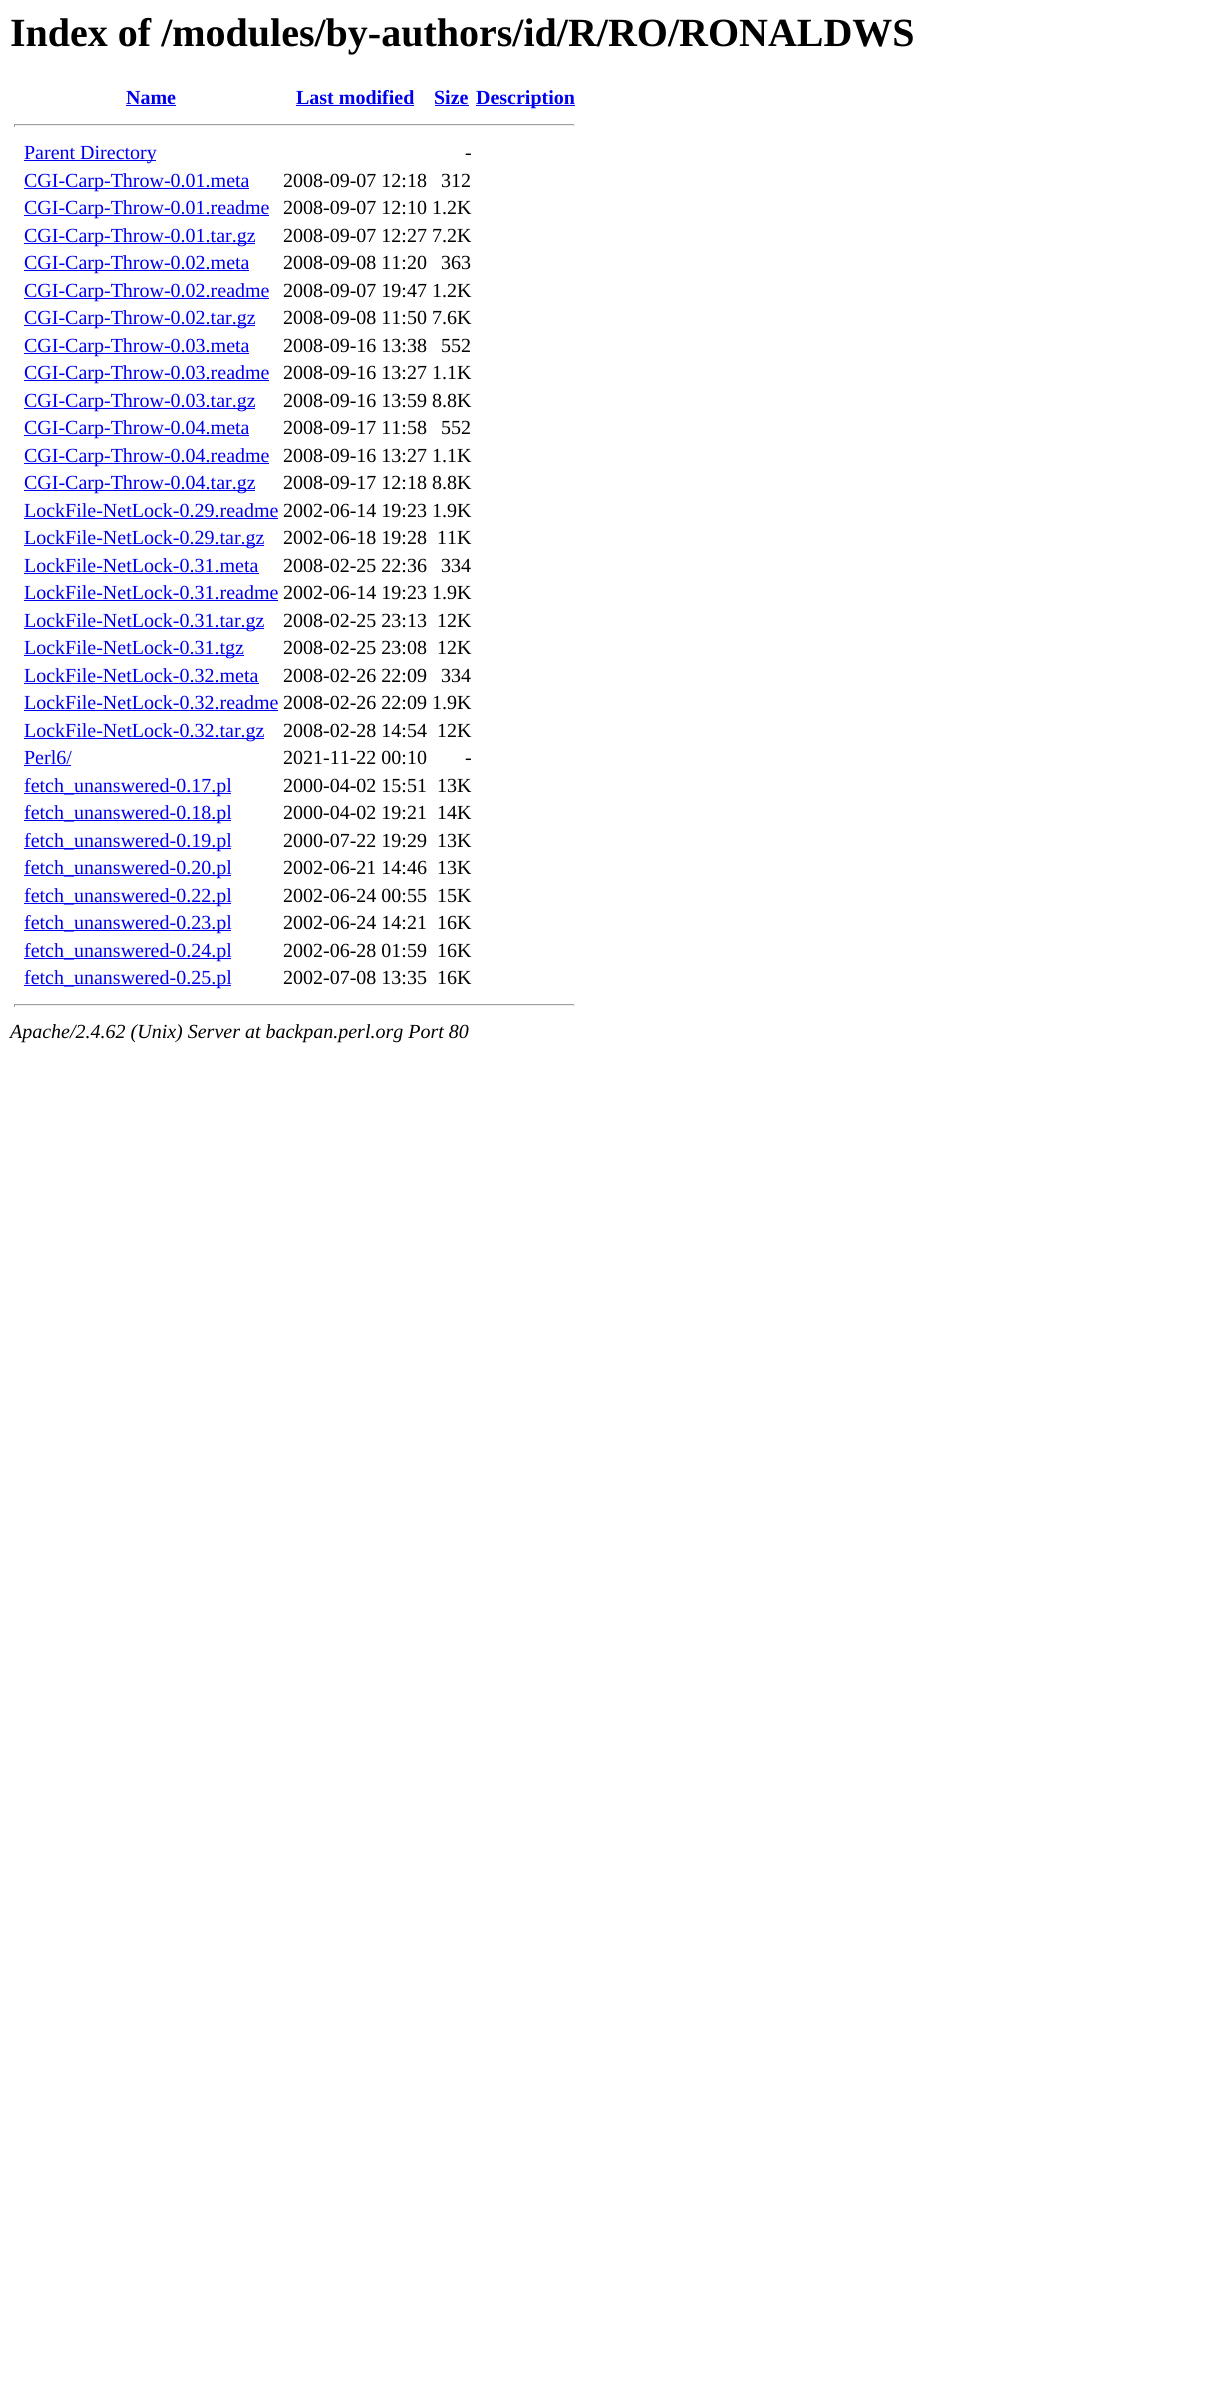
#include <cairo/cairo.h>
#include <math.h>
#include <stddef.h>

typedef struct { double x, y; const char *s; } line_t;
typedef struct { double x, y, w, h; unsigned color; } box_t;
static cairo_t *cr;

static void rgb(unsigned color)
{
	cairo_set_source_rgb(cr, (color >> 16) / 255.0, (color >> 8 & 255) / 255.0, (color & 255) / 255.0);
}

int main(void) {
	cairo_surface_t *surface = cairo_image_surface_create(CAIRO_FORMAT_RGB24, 1220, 2397);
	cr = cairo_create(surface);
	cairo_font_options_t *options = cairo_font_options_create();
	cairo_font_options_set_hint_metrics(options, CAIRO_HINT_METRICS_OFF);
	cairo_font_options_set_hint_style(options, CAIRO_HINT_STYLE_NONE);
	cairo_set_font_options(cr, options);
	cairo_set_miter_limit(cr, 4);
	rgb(0xffffff);
	cairo_paint(cr);
	{
		static const box_t items[] = {
			{126, 105, 50, 1, 0x0000ee},
			{296, 105, 118, 1, 0x0000ee},
			{435, 105, 34, 1, 0x0000ee},
			{476, 105, 99, 1, 0x0000ee},
			{14, 124, 561, 1, 0x9f9f9f},
			{574, 124, 1, 3, 0xeeeeee},
			{14, 125, 561, 1, 0xeeeeee},
			{14, 124, 1, 3, 0x9f9f9f},
			{24, 160, 132, 1, 0x0000ee},
			{24, 188, 225, 1, 0x0000ee},
			{24, 215, 245, 1, 0x0000ee},
			{24, 243, 231, 1, 0x0000ee},
			{24, 270, 225, 1, 0x0000ee},
			{24, 298, 245, 1, 0x0000ee},
			{24, 325, 231, 1, 0x0000ee},
			{24, 353, 225, 1, 0x0000ee},
			{24, 380, 245, 1, 0x0000ee},
			{24, 408, 231, 1, 0x0000ee},
			{24, 435, 225, 1, 0x0000ee},
			{24, 463, 245, 1, 0x0000ee},
			{24, 490, 231, 1, 0x0000ee},
			{24, 518, 254, 1, 0x0000ee},
			{24, 545, 240, 1, 0x0000ee},
			{24, 573, 235, 1, 0x0000ee},
			{24, 600, 254, 1, 0x0000ee},
			{24, 628, 240, 1, 0x0000ee},
			{24, 655, 220, 1, 0x0000ee},
			{24, 683, 235, 1, 0x0000ee},
			{24, 710, 254, 1, 0x0000ee},
			{24, 738, 240, 1, 0x0000ee},
			{24, 765, 47, 1, 0x0000ee},
			{24, 793, 207, 1, 0x0000ee},
			{24, 820, 207, 1, 0x0000ee},
			{24, 848, 207, 1, 0x0000ee},
			{24, 875, 207, 1, 0x0000ee},
			{24, 903, 207, 1, 0x0000ee},
			{24, 930, 207, 1, 0x0000ee},
			{24, 958, 207, 1, 0x0000ee},
			{24, 985, 207, 1, 0x0000ee},
			{14, 1004, 561, 1, 0x9f9f9f},
			{574, 1004, 1, 3, 0xeeeeee},
			{14, 1005, 561, 1, 0xeeeeee},
			{14, 1004, 1, 3, 0x9f9f9f},
		};
		for (size_t i = 0; i < sizeof items / sizeof *items; i++) {
			rgb(items[i].color);
			cairo_rectangle(cr, items[i].x, items[i].y, items[i].w, items[i].h);
			cairo_fill(cr);
		}
	}
	cairo_select_font_face(cr, "Liberation Serif", CAIRO_FONT_SLANT_NORMAL, CAIRO_FONT_WEIGHT_BOLD);
	cairo_set_font_size(cr, 40);
	rgb(0x000000);
	cairo_move_to(cr, 10, 46);
	cairo_show_text(cr, "Index of /modules/by-authors/id/R/RO/RONALDWS");
	cairo_set_font_size(cr, 20);
	rgb(0x0000ee);
	{
		static const line_t items[] = {
			{126, 104, "Name"},
			{296, 104, "Last modified"},
			{434, 104, "Size"},
			{476, 104, "Description"},
		};
		for (size_t i = 0; i < sizeof items / sizeof *items; i++) {
			cairo_move_to(cr, items[i].x, items[i].y);
			cairo_show_text(cr, items[i].s);
		}
	}
	cairo_select_font_face(cr, "Liberation Serif", CAIRO_FONT_SLANT_NORMAL, CAIRO_FONT_WEIGHT_NORMAL);
	cairo_move_to(cr, 24, 159);
	cairo_show_text(cr, "Parent Directory");
	rgb(0x000000);
	cairo_move_to(cr, 465, 159);
	cairo_show_text(cr, "-");
	rgb(0x0000ee);
	cairo_move_to(cr, 24, 187);
	cairo_show_text(cr, "CGI-Carp-Throw-0.01.meta");
	rgb(0x000000);
	cairo_move_to(cr, 283, 187);
	cairo_show_text(cr, "2008-09-07 12:18");
	cairo_move_to(cr, 441, 187);
	cairo_show_text(cr, "312");
	rgb(0x0000ee);
	cairo_move_to(cr, 24, 214);
	cairo_show_text(cr, "CGI-Carp-Throw-0.01.readme");
	rgb(0x000000);
	cairo_move_to(cr, 283, 214);
	cairo_show_text(cr, "2008-09-07 12:10 1.2K");
	rgb(0x0000ee);
	cairo_move_to(cr, 24, 242);
	cairo_show_text(cr, "CGI-Carp-Throw-0.01.tar.gz");
	rgb(0x000000);
	cairo_move_to(cr, 283, 242);
	cairo_show_text(cr, "2008-09-07 12:27 7.2K");
	rgb(0x0000ee);
	cairo_move_to(cr, 24, 269);
	cairo_show_text(cr, "CGI-Carp-Throw-0.02.meta");
	rgb(0x000000);
	cairo_move_to(cr, 283, 269);
	cairo_show_text(cr, "2008-09-08 11:20");
	cairo_move_to(cr, 441, 269);
	cairo_show_text(cr, "363");
	rgb(0x0000ee);
	cairo_move_to(cr, 24, 297);
	cairo_show_text(cr, "CGI-Carp-Throw-0.02.readme");
	rgb(0x000000);
	cairo_move_to(cr, 283, 297);
	cairo_show_text(cr, "2008-09-07 19:47 1.2K");
	rgb(0x0000ee);
	cairo_move_to(cr, 24, 324);
	cairo_show_text(cr, "CGI-Carp-Throw-0.02.tar.gz");
	rgb(0x000000);
	cairo_move_to(cr, 283, 324);
	cairo_show_text(cr, "2008-09-08 11:50 7.6K");
	rgb(0x0000ee);
	cairo_move_to(cr, 24, 352);
	cairo_show_text(cr, "CGI-Carp-Throw-0.03.meta");
	rgb(0x000000);
	cairo_move_to(cr, 283, 352);
	cairo_show_text(cr, "2008-09-16 13:38");
	cairo_move_to(cr, 441, 352);
	cairo_show_text(cr, "552");
	rgb(0x0000ee);
	cairo_move_to(cr, 24, 379);
	cairo_show_text(cr, "CGI-Carp-Throw-0.03.readme");
	rgb(0x000000);
	cairo_move_to(cr, 283, 379);
	cairo_show_text(cr, "2008-09-16 13:27 1.1K");
	rgb(0x0000ee);
	cairo_move_to(cr, 24, 407);
	cairo_show_text(cr, "CGI-Carp-Throw-0.03.tar.gz");
	rgb(0x000000);
	cairo_move_to(cr, 283, 407);
	cairo_show_text(cr, "2008-09-16 13:59 8.8K");
	rgb(0x0000ee);
	cairo_move_to(cr, 24, 434);
	cairo_show_text(cr, "CGI-Carp-Throw-0.04.meta");
	rgb(0x000000);
	cairo_move_to(cr, 283, 434);
	cairo_show_text(cr, "2008-09-17 11:58");
	cairo_move_to(cr, 441, 434);
	cairo_show_text(cr, "552");
	rgb(0x0000ee);
	cairo_move_to(cr, 24, 462);
	cairo_show_text(cr, "CGI-Carp-Throw-0.04.readme");
	rgb(0x000000);
	cairo_move_to(cr, 283, 462);
	cairo_show_text(cr, "2008-09-16 13:27 1.1K");
	rgb(0x0000ee);
	cairo_move_to(cr, 24, 489);
	cairo_show_text(cr, "CGI-Carp-Throw-0.04.tar.gz");
	rgb(0x000000);
	cairo_move_to(cr, 283, 489);
	cairo_show_text(cr, "2008-09-17 12:18 8.8K");
	rgb(0x0000ee);
	cairo_move_to(cr, 24, 517);
	cairo_show_text(cr, "LockFile-NetLock-0.29.readme");
	rgb(0x000000);
	cairo_move_to(cr, 283, 517);
	cairo_show_text(cr, "2002-06-14 19:23 1.9K");
	rgb(0x0000ee);
	cairo_move_to(cr, 24, 544);
	cairo_show_text(cr, "LockFile-NetLock-0.29.tar.gz");
	rgb(0x000000);
	cairo_move_to(cr, 283, 544);
	cairo_show_text(cr, "2002-06-18 19:28");
	cairo_move_to(cr, 437, 544);
	cairo_show_text(cr, "11K");
	rgb(0x0000ee);
	cairo_move_to(cr, 24, 572);
	cairo_show_text(cr, "LockFile-NetLock-0.31.meta");
	rgb(0x000000);
	cairo_move_to(cr, 283, 572);
	cairo_show_text(cr, "2008-02-25 22:36");
	cairo_move_to(cr, 441, 572);
	cairo_show_text(cr, "334");
	rgb(0x0000ee);
	cairo_move_to(cr, 24, 599);
	cairo_show_text(cr, "LockFile-NetLock-0.31.readme");
	rgb(0x000000);
	cairo_move_to(cr, 283, 599);
	cairo_show_text(cr, "2002-06-14 19:23 1.9K");
	rgb(0x0000ee);
	cairo_move_to(cr, 24, 627);
	cairo_show_text(cr, "LockFile-NetLock-0.31.tar.gz");
	rgb(0x000000);
	cairo_move_to(cr, 283, 627);
	cairo_show_text(cr, "2008-02-25 23:13");
	cairo_move_to(cr, 437, 627);
	cairo_show_text(cr, "12K");
	rgb(0x0000ee);
	cairo_move_to(cr, 24, 654);
	cairo_show_text(cr, "LockFile-NetLock-0.31.tgz");
	rgb(0x000000);
	cairo_move_to(cr, 283, 654);
	cairo_show_text(cr, "2008-02-25 23:08");
	cairo_move_to(cr, 437, 654);
	cairo_show_text(cr, "12K");
	rgb(0x0000ee);
	cairo_move_to(cr, 24, 682);
	cairo_show_text(cr, "LockFile-NetLock-0.32.meta");
	rgb(0x000000);
	cairo_move_to(cr, 283, 682);
	cairo_show_text(cr, "2008-02-26 22:09");
	cairo_move_to(cr, 441, 682);
	cairo_show_text(cr, "334");
	rgb(0x0000ee);
	cairo_move_to(cr, 24, 709);
	cairo_show_text(cr, "LockFile-NetLock-0.32.readme");
	rgb(0x000000);
	cairo_move_to(cr, 283, 709);
	cairo_show_text(cr, "2008-02-26 22:09 1.9K");
	rgb(0x0000ee);
	cairo_move_to(cr, 24, 737);
	cairo_show_text(cr, "LockFile-NetLock-0.32.tar.gz");
	rgb(0x000000);
	cairo_move_to(cr, 283, 737);
	cairo_show_text(cr, "2008-02-28 14:54");
	cairo_move_to(cr, 437, 737);
	cairo_show_text(cr, "12K");
	rgb(0x0000ee);
	cairo_move_to(cr, 24, 764);
	cairo_show_text(cr, "Perl6/");
	rgb(0x000000);
	cairo_move_to(cr, 283, 764);
	cairo_show_text(cr, "2021-11-22 00:10");
	cairo_move_to(cr, 465, 764);
	cairo_show_text(cr, "-");
	rgb(0x0000ee);
	cairo_move_to(cr, 24, 792);
	cairo_show_text(cr, "fetch_unanswered-0.17.pl");
	rgb(0x000000);
	cairo_move_to(cr, 283, 792);
	cairo_show_text(cr, "2000-04-02 15:51");
	cairo_move_to(cr, 437, 792);
	cairo_show_text(cr, "13K");
	rgb(0x0000ee);
	cairo_move_to(cr, 24, 819);
	cairo_show_text(cr, "fetch_unanswered-0.18.pl");
	rgb(0x000000);
	cairo_move_to(cr, 283, 819);
	cairo_show_text(cr, "2000-04-02 19:21");
	cairo_move_to(cr, 437, 819);
	cairo_show_text(cr, "14K");
	rgb(0x0000ee);
	cairo_move_to(cr, 24, 847);
	cairo_show_text(cr, "fetch_unanswered-0.19.pl");
	rgb(0x000000);
	cairo_move_to(cr, 283, 847);
	cairo_show_text(cr, "2000-07-22 19:29");
	cairo_move_to(cr, 437, 847);
	cairo_show_text(cr, "13K");
	rgb(0x0000ee);
	cairo_move_to(cr, 24, 874);
	cairo_show_text(cr, "fetch_unanswered-0.20.pl");
	rgb(0x000000);
	cairo_move_to(cr, 283, 874);
	cairo_show_text(cr, "2002-06-21 14:46");
	cairo_move_to(cr, 437, 874);
	cairo_show_text(cr, "13K");
	rgb(0x0000ee);
	cairo_move_to(cr, 24, 902);
	cairo_show_text(cr, "fetch_unanswered-0.22.pl");
	rgb(0x000000);
	cairo_move_to(cr, 283, 902);
	cairo_show_text(cr, "2002-06-24 00:55");
	cairo_move_to(cr, 437, 902);
	cairo_show_text(cr, "15K");
	rgb(0x0000ee);
	cairo_move_to(cr, 24, 929);
	cairo_show_text(cr, "fetch_unanswered-0.23.pl");
	rgb(0x000000);
	cairo_move_to(cr, 283, 929);
	cairo_show_text(cr, "2002-06-24 14:21");
	cairo_move_to(cr, 437, 929);
	cairo_show_text(cr, "16K");
	rgb(0x0000ee);
	cairo_move_to(cr, 24, 957);
	cairo_show_text(cr, "fetch_unanswered-0.24.pl");
	rgb(0x000000);
	cairo_move_to(cr, 283, 957);
	cairo_show_text(cr, "2002-06-28 01:59");
	cairo_move_to(cr, 437, 957);
	cairo_show_text(cr, "16K");
	rgb(0x0000ee);
	cairo_move_to(cr, 24, 984);
	cairo_show_text(cr, "fetch_unanswered-0.25.pl");
	rgb(0x000000);
	cairo_move_to(cr, 283, 984);
	cairo_show_text(cr, "2002-07-08 13:35");
	cairo_move_to(cr, 437, 984);
	cairo_show_text(cr, "16K");
	cairo_select_font_face(cr, "Liberation Serif", CAIRO_FONT_SLANT_ITALIC, CAIRO_FONT_WEIGHT_NORMAL);
	cairo_move_to(cr, 10, 1038);
	cairo_show_text(cr, "Apache/2.4.62 (Unix) Server at backpan.perl.org Port 80");
	cairo_surface_write_to_png(surface, "page.png");
	cairo_font_options_destroy(options);
	cairo_destroy(cr);
	cairo_surface_destroy(surface);
	return 0;
}
